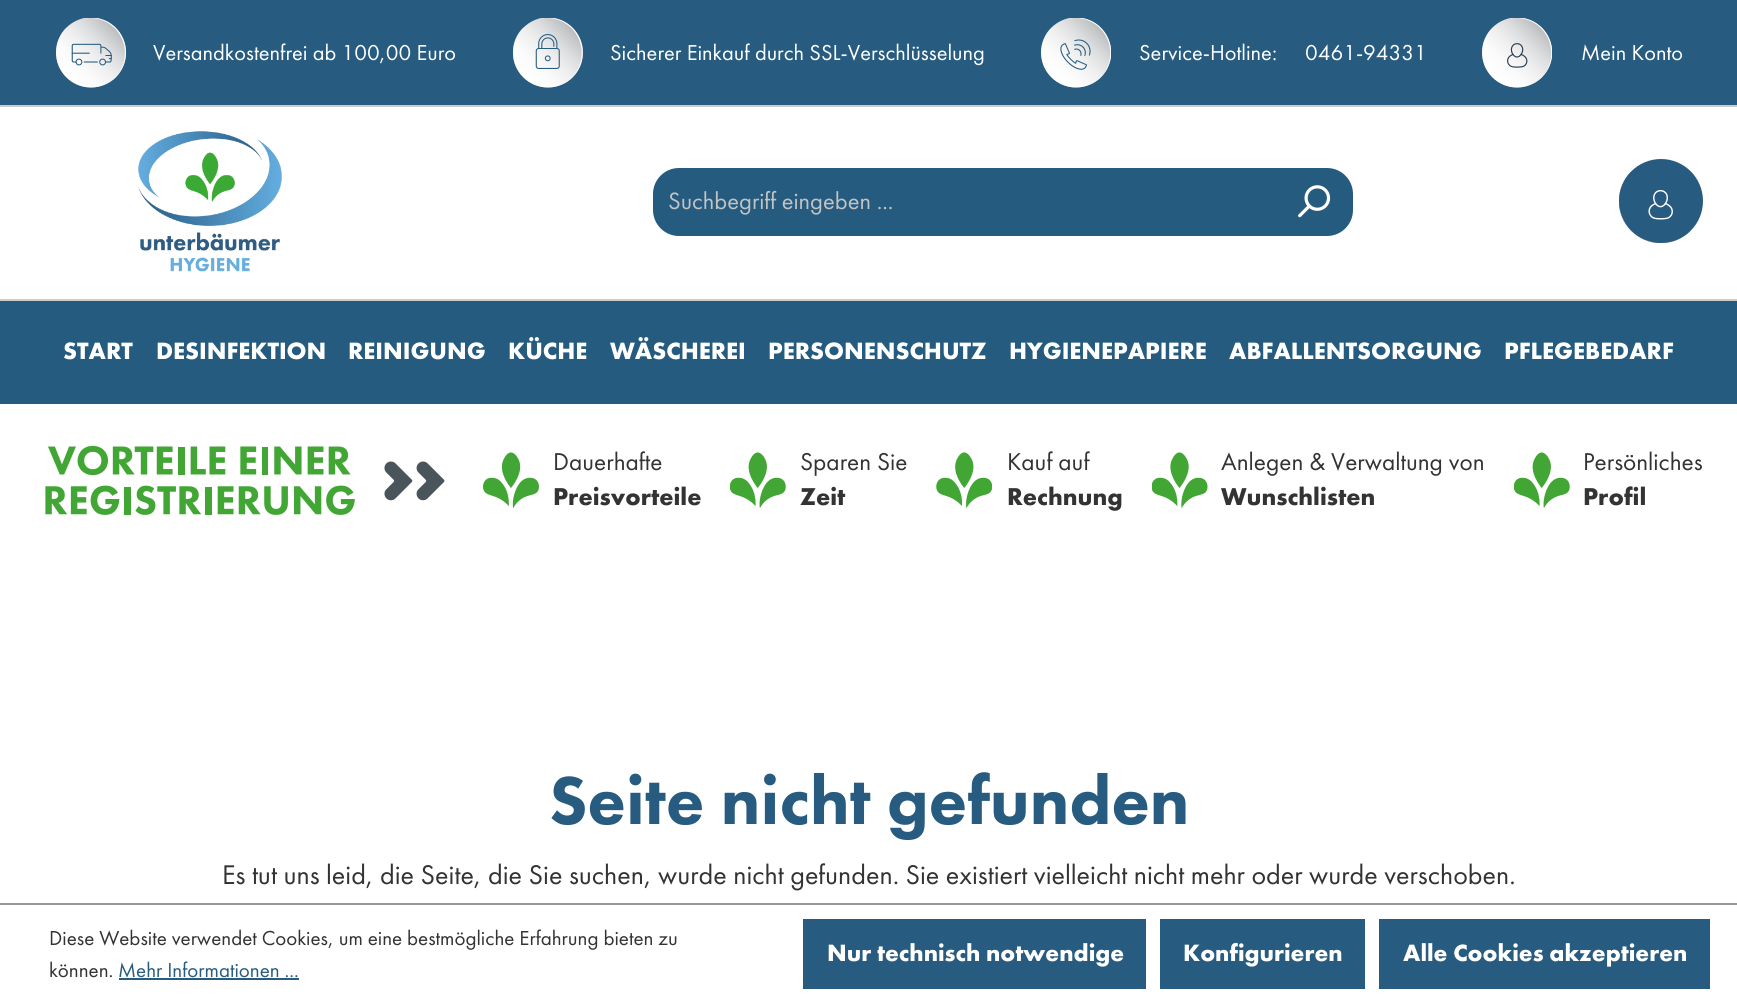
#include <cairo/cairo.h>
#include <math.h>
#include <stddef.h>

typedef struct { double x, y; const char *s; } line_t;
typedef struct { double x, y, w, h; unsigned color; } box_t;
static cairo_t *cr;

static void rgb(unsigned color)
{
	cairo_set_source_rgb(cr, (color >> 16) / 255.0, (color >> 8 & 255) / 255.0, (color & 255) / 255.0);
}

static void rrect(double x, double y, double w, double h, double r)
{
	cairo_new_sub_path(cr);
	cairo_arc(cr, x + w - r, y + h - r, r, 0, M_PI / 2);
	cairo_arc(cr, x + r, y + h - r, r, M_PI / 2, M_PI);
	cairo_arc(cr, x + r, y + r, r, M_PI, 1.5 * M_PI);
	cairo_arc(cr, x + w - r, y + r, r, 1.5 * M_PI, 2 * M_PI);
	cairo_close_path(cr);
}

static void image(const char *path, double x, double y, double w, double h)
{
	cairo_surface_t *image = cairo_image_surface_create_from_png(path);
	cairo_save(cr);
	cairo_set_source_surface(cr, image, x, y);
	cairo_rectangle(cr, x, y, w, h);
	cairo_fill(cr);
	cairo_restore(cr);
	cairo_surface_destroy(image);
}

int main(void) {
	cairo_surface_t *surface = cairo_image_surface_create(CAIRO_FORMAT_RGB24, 1737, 1002);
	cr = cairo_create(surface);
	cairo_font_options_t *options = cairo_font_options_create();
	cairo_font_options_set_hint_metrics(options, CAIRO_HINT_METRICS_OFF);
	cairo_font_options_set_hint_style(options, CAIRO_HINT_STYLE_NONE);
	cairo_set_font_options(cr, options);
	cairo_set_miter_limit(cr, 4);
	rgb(0xffffff);
	cairo_paint(cr);
	rgb(0x275c80);
	cairo_rectangle(cr, 0, 0, 1737, 105);
	cairo_fill(cr);
	rgb(0xcccccc);
	cairo_rectangle(cr, 0, 105, 1737, 2);
	cairo_fill(cr);
	image("img/1.png", 56, 18, 70, 70);
	image("img/2.png", 513, 18, 70, 70);
	image("img/3.png", 1041, 18, 70, 70);
	image("img/4.png", 1482, 18, 70, 70);
	image("img/5.png", 138, 131, 144, 141);
	rgb(0x255b7f);
	rrect(653, 168, 700, 68, 26);
	cairo_fill(cr);
	image("img/6.png", 1298, 185, 33, 33);
	image("img/7.png", 1619, 159, 84, 84);
	cairo_rectangle(cr, 0, 301, 1737, 103);
	cairo_fill(cr);
	rgb(0xcccccc);
	cairo_rectangle(cr, 0, 299, 1737, 2);
	cairo_fill(cr);
	image("img/8.png", 45, 445, 400, 70);
	image("img/9.png", 483, 452, 56, 57);
	image("img/10.png", 730, 452, 56, 57);
	image("img/11.png", 936, 452, 56, 57);
	image("img/12.png", 1152, 452, 56, 57);
	image("img/10.png", 1514, 452, 56, 57);
	{
		static const box_t items[] = {
			{0, 903, 1737, 2, 0x999999},
			{119, 978, 180, 2, 0x275c80},
			{803, 919, 343, 70, 0x275c80},
			{1160, 919, 205, 70, 0x275c80},
			{1379, 919, 331, 70, 0x275c80},
		};
		for (size_t i = 0; i < sizeof items / sizeof *items; i++) {
			rgb(items[i].color);
			cairo_rectangle(cr, items[i].x, items[i].y, items[i].w, items[i].h);
			cairo_fill(cr);
		}
	}
	cairo_select_font_face(cr, "Futura PT", CAIRO_FONT_SLANT_NORMAL, CAIRO_FONT_WEIGHT_NORMAL);
	cairo_set_font_size(cr, 22.4);
	rgb(0xffffff);
	{
		static const line_t items[] = {
			{153, 60, "Versandkostenfrei ab 100,00 Euro"},
			{610, 60, "Sicherer Einkauf durch SSL-Verschlüsselung"},
			{1139, 60, "Service-Hotline:"},
			{1305, 60, "0461-94331"},
			{1581, 60, "Mein Konto"},
		};
		for (size_t i = 0; i < sizeof items / sizeof *items; i++) {
			cairo_move_to(cr, items[i].x, items[i].y);
			cairo_show_text(cr, items[i].s);
		}
	}
	cairo_set_font_size(cr, 24.5);
	rgb(0xc3c3c3);
	cairo_move_to(cr, 668, 209);
	cairo_show_text(cr, "Suchbegriff eingeben ...");
	cairo_select_font_face(cr, "Futura PT", CAIRO_FONT_SLANT_NORMAL, CAIRO_FONT_WEIGHT_BOLD);
	rgb(0xffffff);
	{
		static const line_t items[] = {
			{63, 359, "START"},
			{156, 359, "DESINFEKTION"},
			{348, 359, "REINIGUNG"},
			{508, 359, "KÜCHE"},
			{610, 359, "WÄSCHEREI"},
			{768, 359, "PERSONENSCHUTZ"},
			{1009, 359, "HYGIENEPAPIERE"},
			{1229, 359, "ABFALLENTSORGUNG"},
			{1504, 359, "PFLEGEBEDARF"},
		};
		for (size_t i = 0; i < sizeof items / sizeof *items; i++) {
			cairo_move_to(cr, items[i].x, items[i].y);
			cairo_show_text(cr, items[i].s);
		}
	}
	cairo_select_font_face(cr, "Futura PT", CAIRO_FONT_SLANT_NORMAL, CAIRO_FONT_WEIGHT_NORMAL);
	cairo_set_font_size(cr, 25.25);
	rgb(0x333333);
	cairo_move_to(cr, 553, 470);
	cairo_show_text(cr, "Dauerhafte");
	cairo_select_font_face(cr, "Futura PT", CAIRO_FONT_SLANT_NORMAL, CAIRO_FONT_WEIGHT_BOLD);
	cairo_move_to(cr, 553, 505);
	cairo_show_text(cr, "Preisvorteile");
	cairo_select_font_face(cr, "Futura PT", CAIRO_FONT_SLANT_NORMAL, CAIRO_FONT_WEIGHT_NORMAL);
	cairo_move_to(cr, 800, 470);
	cairo_show_text(cr, "Sparen Sie");
	cairo_select_font_face(cr, "Futura PT", CAIRO_FONT_SLANT_NORMAL, CAIRO_FONT_WEIGHT_BOLD);
	cairo_move_to(cr, 800, 505);
	cairo_show_text(cr, "Zeit");
	cairo_select_font_face(cr, "Futura PT", CAIRO_FONT_SLANT_NORMAL, CAIRO_FONT_WEIGHT_NORMAL);
	cairo_move_to(cr, 1007, 470);
	cairo_show_text(cr, "Kauf auf");
	cairo_select_font_face(cr, "Futura PT", CAIRO_FONT_SLANT_NORMAL, CAIRO_FONT_WEIGHT_BOLD);
	cairo_move_to(cr, 1007, 505);
	cairo_show_text(cr, "Rechnung");
	cairo_select_font_face(cr, "Futura PT", CAIRO_FONT_SLANT_NORMAL, CAIRO_FONT_WEIGHT_NORMAL);
	cairo_move_to(cr, 1221, 470);
	cairo_show_text(cr, "Anlegen & Verwaltung von");
	cairo_select_font_face(cr, "Futura PT", CAIRO_FONT_SLANT_NORMAL, CAIRO_FONT_WEIGHT_BOLD);
	cairo_move_to(cr, 1221, 505);
	cairo_show_text(cr, "Wunschlisten");
	cairo_select_font_face(cr, "Futura PT", CAIRO_FONT_SLANT_NORMAL, CAIRO_FONT_WEIGHT_NORMAL);
	cairo_move_to(cr, 1583, 470);
	cairo_show_text(cr, "Persönliches");
	cairo_select_font_face(cr, "Futura PT", CAIRO_FONT_SLANT_NORMAL, CAIRO_FONT_WEIGHT_BOLD);
	cairo_move_to(cr, 1583, 505);
	cairo_show_text(cr, "Profil");
	cairo_select_font_face(cr, "Futura PT Black", CAIRO_FONT_SLANT_NORMAL, CAIRO_FONT_WEIGHT_NORMAL);
	cairo_set_font_size(cr, 70);
	rgb(0x275c80);
	cairo_move_to(cr, 549, 824);
	cairo_show_text(cr, "Seite nicht gefunden");
	cairo_select_font_face(cr, "Futura PT", CAIRO_FONT_SLANT_NORMAL, CAIRO_FONT_WEIGHT_NORMAL);
	cairo_set_font_size(cr, 28);
	rgb(0x333333);
	cairo_move_to(cr, 222, 884);
	cairo_show_text(cr, "Es tut uns leid, die Seite, die Sie suchen, wurde nicht gefunden. Sie existiert vielleicht nicht mehr oder wurde verschoben.");
	cairo_set_font_size(cr, 21);
	cairo_move_to(cr, 49, 945);
	cairo_show_text(cr, "Diese Website verwendet Cookies, um eine bestmögliche Erfahrung bieten zu");
	cairo_move_to(cr, 49, 977);
	cairo_show_text(cr, "können.");
	rgb(0x275c80);
	cairo_move_to(cr, 118, 977);
	cairo_show_text(cr, "Mehr Informationen ...");
	cairo_select_font_face(cr, "Futura PT", CAIRO_FONT_SLANT_NORMAL, CAIRO_FONT_WEIGHT_BOLD);
	cairo_set_font_size(cr, 24.5);
	rgb(0xffffff);
	{
		static const line_t items[] = {
			{827, 961, "Nur technisch notwendige"},
			{1183, 961, "Konfigurieren"},
			{1403, 961, "Alle Cookies akzeptieren"},
		};
		for (size_t i = 0; i < sizeof items / sizeof *items; i++) {
			cairo_move_to(cr, items[i].x, items[i].y);
			cairo_show_text(cr, items[i].s);
		}
	}
	cairo_surface_write_to_png(surface, "page.png");
	cairo_font_options_destroy(options);
	cairo_destroy(cr);
	cairo_surface_destroy(surface);
	return 0;
}
